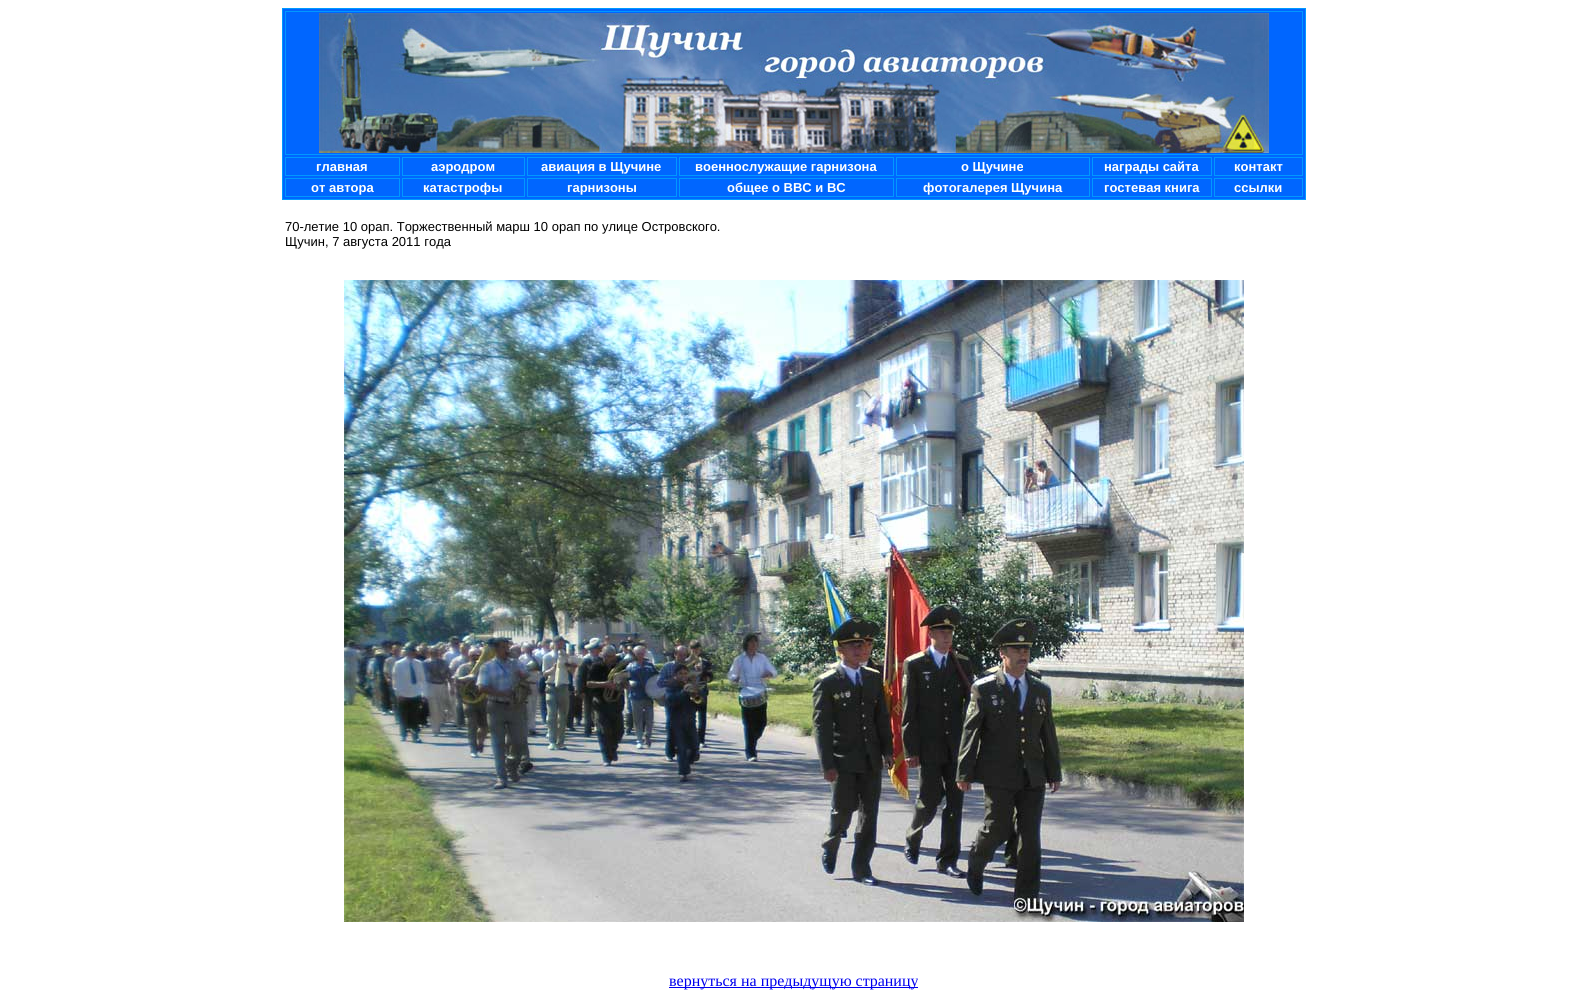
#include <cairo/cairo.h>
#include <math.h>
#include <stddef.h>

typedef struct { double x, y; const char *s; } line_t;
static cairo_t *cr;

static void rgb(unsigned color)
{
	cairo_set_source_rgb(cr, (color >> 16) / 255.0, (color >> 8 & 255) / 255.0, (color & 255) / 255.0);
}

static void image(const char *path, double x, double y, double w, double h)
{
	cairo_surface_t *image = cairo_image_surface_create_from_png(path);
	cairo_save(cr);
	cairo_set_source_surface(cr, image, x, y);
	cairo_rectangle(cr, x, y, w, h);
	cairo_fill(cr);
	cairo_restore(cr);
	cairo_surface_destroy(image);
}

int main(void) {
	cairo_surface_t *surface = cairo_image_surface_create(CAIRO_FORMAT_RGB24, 1587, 1006);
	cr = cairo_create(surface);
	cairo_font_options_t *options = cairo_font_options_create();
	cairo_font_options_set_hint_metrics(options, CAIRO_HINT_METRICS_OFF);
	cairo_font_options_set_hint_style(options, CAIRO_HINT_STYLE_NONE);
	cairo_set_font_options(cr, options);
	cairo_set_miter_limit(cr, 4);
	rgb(0xffffff);
	cairo_paint(cr);
	rgb(0x0066ff);
	cairo_rectangle(cr, 282.5, 8.5, 1023, 191);
	cairo_fill_preserve(cr);
	rgb(0x0099ff);
	cairo_set_line_width(cr, 1);
	cairo_stroke(cr);
	cairo_rectangle(cr, 285.5, 11.5, 1017, 143);
	cairo_stroke(cr);
	image("img/1.png", 319, 13, 950, 140);
	cairo_rectangle(cr, 285.5, 157.5, 114, 18);
	cairo_stroke(cr);
	cairo_rectangle(cr, 402.5, 157.5, 122, 18);
	cairo_stroke(cr);
	cairo_rectangle(cr, 527.5, 157.5, 149, 18);
	cairo_stroke(cr);
	cairo_rectangle(cr, 679.5, 157.5, 214, 18);
	cairo_stroke(cr);
	cairo_rectangle(cr, 896.5, 157.5, 193, 18);
	cairo_stroke(cr);
	cairo_rectangle(cr, 1092.5, 157.5, 119, 18);
	cairo_stroke(cr);
	cairo_rectangle(cr, 1214.5, 157.5, 88, 18);
	cairo_stroke(cr);
	cairo_rectangle(cr, 285.5, 178.5, 114, 18);
	cairo_stroke(cr);
	cairo_rectangle(cr, 402.5, 178.5, 122, 18);
	cairo_stroke(cr);
	cairo_rectangle(cr, 527.5, 178.5, 149, 18);
	cairo_stroke(cr);
	cairo_rectangle(cr, 679.5, 178.5, 214, 18);
	cairo_stroke(cr);
	cairo_rectangle(cr, 896.5, 178.5, 193, 18);
	cairo_stroke(cr);
	cairo_rectangle(cr, 1092.5, 178.5, 119, 18);
	cairo_stroke(cr);
	cairo_rectangle(cr, 1214.5, 178.5, 88, 18);
	cairo_stroke(cr);
	image("img/2.png", 344, 280, 900, 642);
	rgb(0x0000ee);
	cairo_rectangle(cr, 669, 987, 249, 1);
	cairo_fill(cr);
	cairo_select_font_face(cr, "Liberation Sans", CAIRO_FONT_SLANT_NORMAL, CAIRO_FONT_WEIGHT_BOLD);
	cairo_set_font_size(cr, 13);
	rgb(0xffffff);
	{
		static const line_t items[] = {
			{316, 171, "главная"},
			{431, 171, "аэродром"},
			{541, 171, "авиация в Щучине"},
			{695, 171, "военнослужащие гарнизона"},
			{961, 171, "о Щучине"},
			{1104, 171, "награды сайта"},
			{1234, 171, "контакт"},
			{311, 192, "от автора"},
			{423, 192, "катастрофы"},
			{567, 192, "гарнизоны"},
			{727, 192, "общее о ВВС и ВС"},
			{923, 192, "фотогалерея Щучина"},
			{1104, 192, "гостевая книга"},
			{1234, 192, "ссылки"},
		};
		for (size_t i = 0; i < sizeof items / sizeof *items; i++) {
			cairo_move_to(cr, items[i].x, items[i].y);
			cairo_show_text(cr, items[i].s);
		}
	}
	cairo_select_font_face(cr, "Liberation Sans", CAIRO_FONT_SLANT_NORMAL, CAIRO_FONT_WEIGHT_NORMAL);
	rgb(0x000000);
	cairo_move_to(cr, 285, 231);
	cairo_show_text(cr, "70-летие 10 орап. Торжественный марш 10 орап по улице Островского.");
	cairo_move_to(cr, 285, 246);
	cairo_show_text(cr, "Щучин, 7 августа 2011 года");
	cairo_select_font_face(cr, "Liberation Serif", CAIRO_FONT_SLANT_NORMAL, CAIRO_FONT_WEIGHT_NORMAL);
	cairo_set_font_size(cr, 16);
	rgb(0x0000ee);
	cairo_move_to(cr, 669, 986);
	cairo_show_text(cr, "вернуться на предыдущую страницу");
	cairo_surface_write_to_png(surface, "page.png");
	cairo_font_options_destroy(options);
	cairo_destroy(cr);
	cairo_surface_destroy(surface);
	return 0;
}
